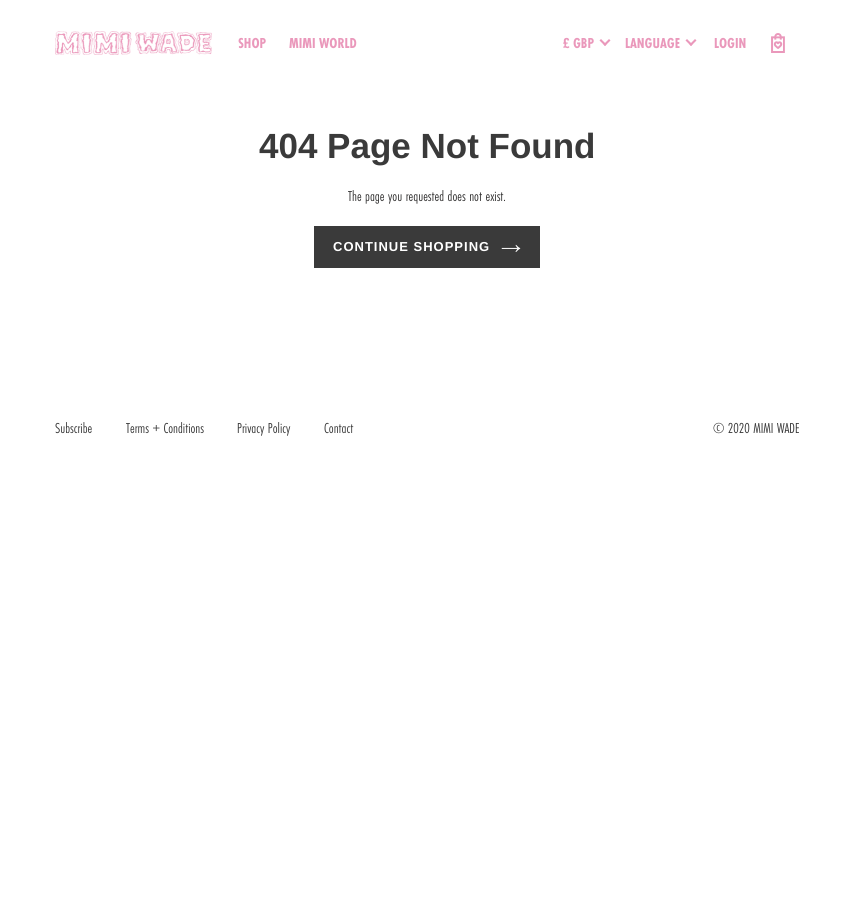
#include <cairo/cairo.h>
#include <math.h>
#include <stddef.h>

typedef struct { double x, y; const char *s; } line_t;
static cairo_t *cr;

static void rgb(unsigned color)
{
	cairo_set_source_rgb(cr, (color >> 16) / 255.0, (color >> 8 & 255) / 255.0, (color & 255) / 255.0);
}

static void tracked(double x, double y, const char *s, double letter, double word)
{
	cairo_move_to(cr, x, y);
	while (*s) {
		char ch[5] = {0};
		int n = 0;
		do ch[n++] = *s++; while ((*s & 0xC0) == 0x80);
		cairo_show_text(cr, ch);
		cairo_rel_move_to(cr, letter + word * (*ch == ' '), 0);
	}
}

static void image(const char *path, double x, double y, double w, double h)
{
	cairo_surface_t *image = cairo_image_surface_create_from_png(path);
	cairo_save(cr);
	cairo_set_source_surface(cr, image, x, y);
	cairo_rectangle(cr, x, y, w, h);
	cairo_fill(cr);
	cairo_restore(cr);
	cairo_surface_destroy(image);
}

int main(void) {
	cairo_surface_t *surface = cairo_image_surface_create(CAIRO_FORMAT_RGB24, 854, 901);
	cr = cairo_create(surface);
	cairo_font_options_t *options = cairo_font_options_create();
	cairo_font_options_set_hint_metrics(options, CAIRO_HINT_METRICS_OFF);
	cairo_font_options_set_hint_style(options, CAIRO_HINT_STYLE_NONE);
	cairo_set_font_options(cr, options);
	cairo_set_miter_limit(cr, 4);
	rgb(0xffffff);
	cairo_paint(cr);
	image("img/1.png", 55, 31, 157, 24);
	rgb(0xea98bb);
	cairo_new_path(cr);
	cairo_move_to(cr, 609, 39);
	cairo_line_to(cr, 610.5, 40.5);
	cairo_line_to(cr, 605, 46);
	cairo_line_to(cr, 603.5, 44.5);
	cairo_close_path(cr);
	cairo_fill(cr);
	cairo_new_path(cr);
	cairo_move_to(cr, 601, 39);
	cairo_line_to(cr, 606.5, 44.5);
	cairo_line_to(cr, 605, 46);
	cairo_line_to(cr, 599.5, 40.5);
	cairo_close_path(cr);
	cairo_fill(cr);
	cairo_new_path(cr);
	cairo_move_to(cr, 695, 39);
	cairo_line_to(cr, 696.5, 40.5);
	cairo_line_to(cr, 691, 46);
	cairo_line_to(cr, 689.5, 44.5);
	cairo_close_path(cr);
	cairo_fill(cr);
	cairo_new_path(cr);
	cairo_move_to(cr, 687, 39);
	cairo_line_to(cr, 692.5, 44.5);
	cairo_line_to(cr, 691, 46);
	cairo_line_to(cr, 685.5, 40.5);
	cairo_close_path(cr);
	cairo_fill(cr);
	image("img/2.png", 771, 33, 14, 20);
	rgb(0x3a3a3a);
	cairo_rectangle(cr, 314, 226, 226, 42);
	cairo_fill(cr);
	image("img/3.png", 501, 244, 20, 8);
	cairo_select_font_face(cr, "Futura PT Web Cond", CAIRO_FONT_SLANT_NORMAL, CAIRO_FONT_WEIGHT_BOLD);
	cairo_set_font_size(cr, 15);
	rgb(0xea98bb);
	{
		static const line_t items[] = {
			{238, 48, "SHOP"},
			{289, 48, "MIMI WORLD"},
			{563, 48, "£ GBP"},
			{625, 48, "LANGUAGE"},
			{714, 48, "LOGIN"},
		};
		for (size_t i = 0; i < sizeof items / sizeof *items; i++) {
			cairo_move_to(cr, items[i].x, items[i].y);
			cairo_show_text(cr, items[i].s);
		}
	}
	cairo_select_font_face(cr, "Liberation Sans", CAIRO_FONT_SLANT_NORMAL, CAIRO_FONT_WEIGHT_BOLD);
	cairo_set_font_size(cr, 35);
	rgb(0x3a3a3a);
	cairo_move_to(cr, 259, 158);
	cairo_show_text(cr, "404 Page Not Found");
	cairo_select_font_face(cr, "Futura PT Web Cond", CAIRO_FONT_SLANT_NORMAL, CAIRO_FONT_WEIGHT_NORMAL);
	cairo_set_font_size(cr, 15);
	rgb(0x333232);
	cairo_move_to(cr, 348, 201);
	cairo_show_text(cr, "The page you requested does not exist.");
	cairo_select_font_face(cr, "Liberation Sans", CAIRO_FONT_SLANT_NORMAL, CAIRO_FONT_WEIGHT_BOLD);
	cairo_set_font_size(cr, 13);
	rgb(0xffffff);
	tracked(333, 251, "CONTINUE SHOPPING", 1, 0);
	cairo_select_font_face(cr, "Futura PT Web Cond", CAIRO_FONT_SLANT_NORMAL, CAIRO_FONT_WEIGHT_NORMAL);
	cairo_set_font_size(cr, 15);
	rgb(0x3a3a3a);
	{
		static const line_t items[] = {
			{55, 433, "Subscribe"},
			{126, 433, "Terms + Conditions"},
			{237, 433, "Privacy Policy"},
			{324, 433, "Contact"},
			{713, 433, "© 2020 MIMI WADE"},
		};
		for (size_t i = 0; i < sizeof items / sizeof *items; i++) {
			cairo_move_to(cr, items[i].x, items[i].y);
			cairo_show_text(cr, items[i].s);
		}
	}
	cairo_surface_write_to_png(surface, "page.png");
	cairo_font_options_destroy(options);
	cairo_destroy(cr);
	cairo_surface_destroy(surface);
	return 0;
}
